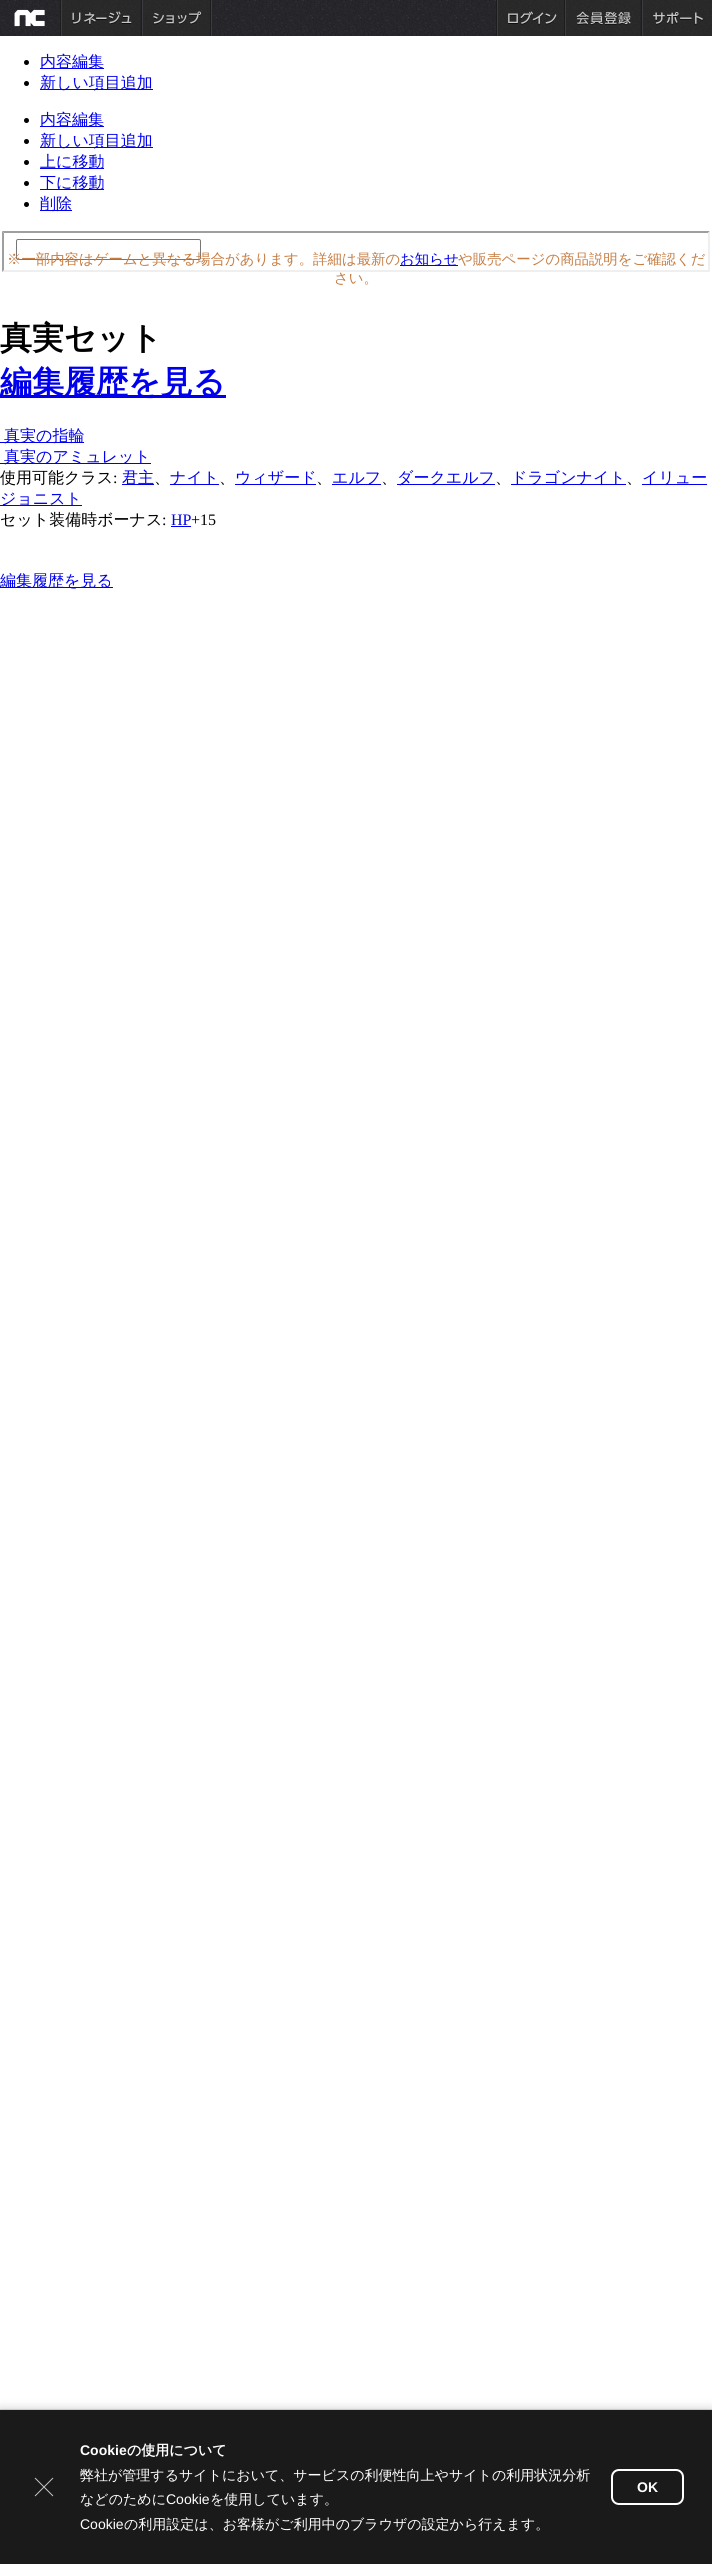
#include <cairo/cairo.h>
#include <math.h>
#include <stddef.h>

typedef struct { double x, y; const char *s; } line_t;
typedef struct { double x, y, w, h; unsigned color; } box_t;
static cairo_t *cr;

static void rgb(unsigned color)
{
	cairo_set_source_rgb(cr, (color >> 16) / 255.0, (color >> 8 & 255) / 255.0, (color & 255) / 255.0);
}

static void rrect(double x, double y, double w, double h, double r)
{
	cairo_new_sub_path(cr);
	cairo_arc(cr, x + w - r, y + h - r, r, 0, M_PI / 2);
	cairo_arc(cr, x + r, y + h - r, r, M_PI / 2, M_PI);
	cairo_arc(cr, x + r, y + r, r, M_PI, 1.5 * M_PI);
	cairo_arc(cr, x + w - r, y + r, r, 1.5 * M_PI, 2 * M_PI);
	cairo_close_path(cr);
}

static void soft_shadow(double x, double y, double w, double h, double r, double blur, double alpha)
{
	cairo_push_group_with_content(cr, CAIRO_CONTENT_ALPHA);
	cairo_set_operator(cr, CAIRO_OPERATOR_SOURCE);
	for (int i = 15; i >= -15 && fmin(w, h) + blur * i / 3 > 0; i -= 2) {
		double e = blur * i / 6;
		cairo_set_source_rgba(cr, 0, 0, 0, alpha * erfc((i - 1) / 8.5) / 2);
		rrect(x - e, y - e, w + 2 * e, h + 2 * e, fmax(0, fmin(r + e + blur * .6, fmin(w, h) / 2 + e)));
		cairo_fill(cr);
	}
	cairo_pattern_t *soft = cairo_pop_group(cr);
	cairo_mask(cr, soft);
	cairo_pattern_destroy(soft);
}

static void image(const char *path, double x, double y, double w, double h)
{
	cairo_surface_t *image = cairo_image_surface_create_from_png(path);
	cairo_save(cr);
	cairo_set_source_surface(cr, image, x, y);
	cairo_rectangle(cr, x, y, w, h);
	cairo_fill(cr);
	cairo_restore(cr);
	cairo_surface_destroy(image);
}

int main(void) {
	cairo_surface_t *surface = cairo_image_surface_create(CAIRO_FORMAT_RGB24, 712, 2564);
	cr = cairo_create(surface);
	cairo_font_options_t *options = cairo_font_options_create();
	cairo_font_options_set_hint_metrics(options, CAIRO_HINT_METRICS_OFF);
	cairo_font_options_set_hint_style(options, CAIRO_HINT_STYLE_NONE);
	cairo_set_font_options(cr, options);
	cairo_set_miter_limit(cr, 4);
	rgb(0xffffff);
	cairo_paint(cr);
	image("img/1.png", 0, 0, 496, 36);
	rgb(0x3c3b40);
	cairo_rectangle(cr, 61, 0, 1, 36);
	cairo_fill(cr);
	image("img/2.png", 14, 9, 31, 18);
	{
		static const box_t items[] = {
			{60, 0, 1, 36, 0x1d1d20},
			{142, 0, 1, 36, 0x3c3b40},
			{141, 0, 1, 36, 0x1d1d20},
		};
		for (size_t i = 0; i < sizeof items / sizeof *items; i++) {
			rgb(items[i].color);
			cairo_rectangle(cr, items[i].x, items[i].y, items[i].w, items[i].h);
			cairo_fill(cr);
		}
	}
	image("img/3.png", 62, 0, 79, 36);
	rgb(0x3c3b40);
	cairo_rectangle(cr, 211, 0, 1, 36);
	cairo_fill(cr);
	image("img/4.png", 143, 0, 67, 36);
	rgb(0x1d1d20);
	cairo_rectangle(cr, 210, 0, 1, 36);
	cairo_fill(cr);
	cairo_rectangle(cr, 496, 0, 1, 36);
	cairo_fill(cr);
	image("img/5.png", 498, 0, 66, 36);
	rgb(0x3c3b40);
	cairo_rectangle(cr, 497, 0, 1, 36);
	cairo_fill(cr);
	rgb(0x1d1d20);
	cairo_rectangle(cr, 564, 0, 1, 36);
	cairo_fill(cr);
	image("img/6.png", 566, 0, 75, 36);
	rgb(0x3c3b40);
	cairo_rectangle(cr, 565, 0, 1, 36);
	cairo_fill(cr);
	rgb(0x1d1d20);
	cairo_rectangle(cr, 641, 0, 1, 36);
	cairo_fill(cr);
	image("img/7.png", 643, 0, 69, 36);
	rgb(0x3c3b40);
	cairo_rectangle(cr, 642, 0, 1, 36);
	cairo_fill(cr);
	rgb(0x000000);
	cairo_arc(cr, 26.5, 62.5, 2.5, 0, 2 * M_PI);
	cairo_fill(cr);
	rgb(0x0000ee);
	cairo_rectangle(cr, 40, 68, 64, 1);
	cairo_fill(cr);
	rgb(0x000000);
	cairo_arc(cr, 26.5, 83.5, 2.5, 0, 2 * M_PI);
	cairo_fill(cr);
	rgb(0x0000ee);
	cairo_rectangle(cr, 40, 89, 113, 1);
	cairo_fill(cr);
	rgb(0x000000);
	cairo_arc(cr, 26.5, 120.5, 2.5, 0, 2 * M_PI);
	cairo_fill(cr);
	rgb(0x0000ee);
	cairo_rectangle(cr, 40, 126, 64, 1);
	cairo_fill(cr);
	rgb(0x000000);
	cairo_arc(cr, 26.5, 141.5, 2.5, 0, 2 * M_PI);
	cairo_fill(cr);
	rgb(0x0000ee);
	cairo_rectangle(cr, 40, 147, 113, 1);
	cairo_fill(cr);
	rgb(0x000000);
	cairo_arc(cr, 26.5, 162.5, 2.5, 0, 2 * M_PI);
	cairo_fill(cr);
	rgb(0x0000ee);
	cairo_rectangle(cr, 40, 168, 64, 1);
	cairo_fill(cr);
	rgb(0x000000);
	cairo_arc(cr, 26.5, 183.5, 2.5, 0, 2 * M_PI);
	cairo_fill(cr);
	rgb(0x0000ee);
	cairo_rectangle(cr, 40, 189, 64, 1);
	cairo_fill(cr);
	rgb(0x000000);
	cairo_arc(cr, 26.5, 204.5, 2.5, 0, 2 * M_PI);
	cairo_fill(cr);
	rgb(0x0000ee);
	cairo_rectangle(cr, 40, 210, 32, 1);
	cairo_fill(cr);
	rgb(0x9f9f9f);
	cairo_new_path(cr);
	cairo_move_to(cr, 2, 231);
	cairo_line_to(cr, 710, 231);
	cairo_line_to(cr, 708, 233);
	cairo_line_to(cr, 4, 233);
	cairo_close_path(cr);
	cairo_fill(cr);
	rgb(0xefefef);
	cairo_new_path(cr);
	cairo_move_to(cr, 710, 231);
	cairo_line_to(cr, 710, 272);
	cairo_line_to(cr, 708, 270);
	cairo_line_to(cr, 708, 233);
	cairo_close_path(cr);
	cairo_fill(cr);
	cairo_new_path(cr);
	cairo_move_to(cr, 710, 272);
	cairo_line_to(cr, 2, 272);
	cairo_line_to(cr, 4, 270);
	cairo_line_to(cr, 708, 270);
	cairo_close_path(cr);
	cairo_fill(cr);
	rgb(0x9f9f9f);
	cairo_new_path(cr);
	cairo_move_to(cr, 2, 272);
	cairo_line_to(cr, 2, 231);
	cairo_line_to(cr, 4, 233);
	cairo_line_to(cr, 4, 270);
	cairo_close_path(cr);
	cairo_fill(cr);
	rrect(16.5, 239.5, 184, 20, 1.5);
	rgb(0x767676);
	cairo_set_line_width(cr, 1);
	cairo_stroke(cr);
	{
		static const box_t items[] = {
			{400, 265, 58, 1, 0x0000ee},
			{0, 395, 226, 3, 0x0000ee},
			{0, 442, 84, 1, 0x0000ee},
			{0, 463, 151, 1, 0x0000ee},
			{122, 484, 32, 1, 0x0000ee},
			{170, 484, 49, 1, 0x0000ee},
			{235, 484, 81, 1, 0x0000ee},
			{332, 484, 49, 1, 0x0000ee},
			{397, 484, 98, 1, 0x0000ee},
			{511, 484, 115, 1, 0x0000ee},
			{642, 484, 65, 1, 0x0000ee},
			{0, 505, 82, 1, 0x0000ee},
			{171, 526, 20, 1, 0x0000ee},
			{0, 587, 113, 1, 0x0000ee},
		};
		for (size_t i = 0; i < sizeof items / sizeof *items; i++) {
			rgb(items[i].color);
			cairo_rectangle(cr, items[i].x, items[i].y, items[i].w, items[i].h);
			cairo_fill(cr);
		}
	}
	rgb(0x000000);
	soft_shadow(0, 2409, 712, 155, 0, 5, 0.2);
	rgb(0x1a1a1a);
	cairo_rectangle(cr, 0, 2410, 712, 154);
	cairo_fill(cr);
	rgb(0xcccccc);
	cairo_rectangle(cr, 0, 2409, 712, 1);
	cairo_fill(cr);
	cairo_new_path(cr);
	cairo_move_to(cr, 35, 2478);
	cairo_line_to(cr, 53, 2496);
	cairo_move_to(cr, 35, 2496);
	cairo_line_to(cr, 53, 2478);
	rgb(0xc6c6c6);
	cairo_stroke(cr);
	rrect(612, 2470, 71, 34, 7);
	rgb(0xffffff);
	cairo_set_line_width(cr, 2);
	cairo_stroke(cr);
	cairo_select_font_face(cr, "WenQuanYi Zen Hei Medium", CAIRO_FONT_SLANT_NORMAL, CAIRO_FONT_WEIGHT_NORMAL);
	cairo_set_font_size(cr, 16);
	rgb(0x0000ee);
	{
		static const line_t items[] = {
			{40, 67, "内容編集"},
			{40, 88, "新しい項目追加"},
			{40, 125, "内容編集"},
			{40, 146, "新しい項目追加"},
			{40, 167, "上に移動"},
			{40, 188, "下に移動"},
			{40, 209, "削除"},
		};
		for (size_t i = 0; i < sizeof items / sizeof *items; i++) {
			cairo_move_to(cr, items[i].x, items[i].y);
			cairo_show_text(cr, items[i].s);
		}
	}
	cairo_set_font_size(cr, 14.4);
	rgb(0xc67d43);
	cairo_move_to(cr, 7, 264);
	cairo_show_text(cr, "※一部内容はゲームと異なる場合があります。詳細は最新の");
	rgb(0x0000ee);
	cairo_move_to(cr, 400, 264);
	cairo_show_text(cr, "お知らせ");
	rgb(0xc67d43);
	cairo_move_to(cr, 458, 264);
	cairo_show_text(cr, "や販売ページの商品説明をご確認くだ");
	cairo_move_to(cr, 334, 283);
	cairo_show_text(cr, "さい。");
	cairo_select_font_face(cr, "WenQuanYi Zen Hei", CAIRO_FONT_SLANT_NORMAL, CAIRO_FONT_WEIGHT_BOLD);
	cairo_set_font_size(cr, 32);
	rgb(0x000000);
	cairo_move_to(cr, 0, 349);
	cairo_show_text(cr, "真実セット");
	rgb(0x0000ee);
	cairo_move_to(cr, 0, 393);
	cairo_show_text(cr, "編集履歴を見る");
	cairo_select_font_face(cr, "WenQuanYi Zen Hei Medium", CAIRO_FONT_SLANT_NORMAL, CAIRO_FONT_WEIGHT_NORMAL);
	cairo_set_font_size(cr, 16);
	cairo_move_to(cr, 4, 441);
	cairo_show_text(cr, "真実の指輪");
	cairo_move_to(cr, 4, 462);
	cairo_show_text(cr, "真実のアミュレット");
	rgb(0x000000);
	cairo_move_to(cr, 0, 483);
	cairo_show_text(cr, "使用可能クラス");
	cairo_select_font_face(cr, "Liberation Serif", CAIRO_FONT_SLANT_NORMAL, CAIRO_FONT_WEIGHT_NORMAL);
	cairo_move_to(cr, 113, 483);
	cairo_show_text(cr, ":");
	cairo_select_font_face(cr, "WenQuanYi Zen Hei Medium", CAIRO_FONT_SLANT_NORMAL, CAIRO_FONT_WEIGHT_NORMAL);
	rgb(0x0000ee);
	cairo_move_to(cr, 122, 483);
	cairo_show_text(cr, "君主");
	rgb(0x000000);
	cairo_move_to(cr, 154, 483);
	cairo_show_text(cr, "、");
	rgb(0x0000ee);
	cairo_move_to(cr, 170, 483);
	cairo_show_text(cr, "ナイト");
	rgb(0x000000);
	cairo_move_to(cr, 219, 483);
	cairo_show_text(cr, "、");
	rgb(0x0000ee);
	cairo_move_to(cr, 235, 483);
	cairo_show_text(cr, "ウィザード");
	rgb(0x000000);
	cairo_move_to(cr, 316, 483);
	cairo_show_text(cr, "、");
	rgb(0x0000ee);
	cairo_move_to(cr, 332, 483);
	cairo_show_text(cr, "エルフ");
	rgb(0x000000);
	cairo_move_to(cr, 381, 483);
	cairo_show_text(cr, "、");
	rgb(0x0000ee);
	cairo_move_to(cr, 397, 483);
	cairo_show_text(cr, "ダークエルフ");
	rgb(0x000000);
	cairo_move_to(cr, 495, 483);
	cairo_show_text(cr, "、");
	rgb(0x0000ee);
	cairo_move_to(cr, 511, 483);
	cairo_show_text(cr, "ドラゴンナイト");
	rgb(0x000000);
	cairo_move_to(cr, 626, 483);
	cairo_show_text(cr, "、");
	rgb(0x0000ee);
	cairo_move_to(cr, 642, 483);
	cairo_show_text(cr, "イリュー");
	cairo_move_to(cr, 0, 504);
	cairo_show_text(cr, "ジョニスト");
	rgb(0x000000);
	cairo_move_to(cr, 0, 525);
	cairo_show_text(cr, "セット装備時ボーナス");
	cairo_select_font_face(cr, "Liberation Serif", CAIRO_FONT_SLANT_NORMAL, CAIRO_FONT_WEIGHT_NORMAL);
	cairo_move_to(cr, 162, 525);
	cairo_show_text(cr, ":");
	rgb(0x0000ee);
	cairo_move_to(cr, 171, 525);
	cairo_show_text(cr, "HP");
	rgb(0x000000);
	cairo_move_to(cr, 191, 525);
	cairo_show_text(cr, "+15");
	cairo_select_font_face(cr, "WenQuanYi Zen Hei Medium", CAIRO_FONT_SLANT_NORMAL, CAIRO_FONT_WEIGHT_NORMAL);
	rgb(0x0000ee);
	cairo_move_to(cr, 0, 586);
	cairo_show_text(cr, "編集履歴を見る");
	cairo_select_font_face(cr, "Liberation Sans", CAIRO_FONT_SLANT_NORMAL, CAIRO_FONT_WEIGHT_BOLD);
	cairo_set_font_size(cr, 14);
	rgb(0xffffff);
	cairo_move_to(cr, 80, 2455);
	cairo_show_text(cr, "Cookie");
	cairo_select_font_face(cr, "WenQuanYi Zen Hei", CAIRO_FONT_SLANT_NORMAL, CAIRO_FONT_WEIGHT_BOLD);
	cairo_move_to(cr, 127, 2455);
	cairo_show_text(cr, "の使用について");
	cairo_select_font_face(cr, "WenQuanYi Zen Hei Medium", CAIRO_FONT_SLANT_NORMAL, CAIRO_FONT_WEIGHT_NORMAL);
	cairo_move_to(cr, 80, 2480);
	cairo_show_text(cr, "弊社が管理するサイトにおいて、サービスの利便性向上やサイトの利用状況分析");
	cairo_move_to(cr, 80, 2504);
	cairo_show_text(cr, "などのために");
	cairo_select_font_face(cr, "Liberation Sans", CAIRO_FONT_SLANT_NORMAL, CAIRO_FONT_WEIGHT_NORMAL);
	cairo_move_to(cr, 166, 2504);
	cairo_show_text(cr, "Cookie");
	cairo_select_font_face(cr, "WenQuanYi Zen Hei Medium", CAIRO_FONT_SLANT_NORMAL, CAIRO_FONT_WEIGHT_NORMAL);
	cairo_move_to(cr, 210, 2504);
	cairo_show_text(cr, "を使用しています。");
	cairo_select_font_face(cr, "Liberation Sans", CAIRO_FONT_SLANT_NORMAL, CAIRO_FONT_WEIGHT_NORMAL);
	cairo_move_to(cr, 80, 2529);
	cairo_show_text(cr, "Cookie");
	cairo_select_font_face(cr, "WenQuanYi Zen Hei Medium", CAIRO_FONT_SLANT_NORMAL, CAIRO_FONT_WEIGHT_NORMAL);
	cairo_move_to(cr, 124, 2529);
	cairo_show_text(cr, "の利用設定は、お客様がご利用中のブラウザの設定から行えます。");
	cairo_select_font_face(cr, "Liberation Sans", CAIRO_FONT_SLANT_NORMAL, CAIRO_FONT_WEIGHT_BOLD);
	cairo_move_to(cr, 637, 2492);
	cairo_show_text(cr, "OK");
	cairo_surface_write_to_png(surface, "page.png");
	cairo_font_options_destroy(options);
	cairo_destroy(cr);
	cairo_surface_destroy(surface);
	return 0;
}
